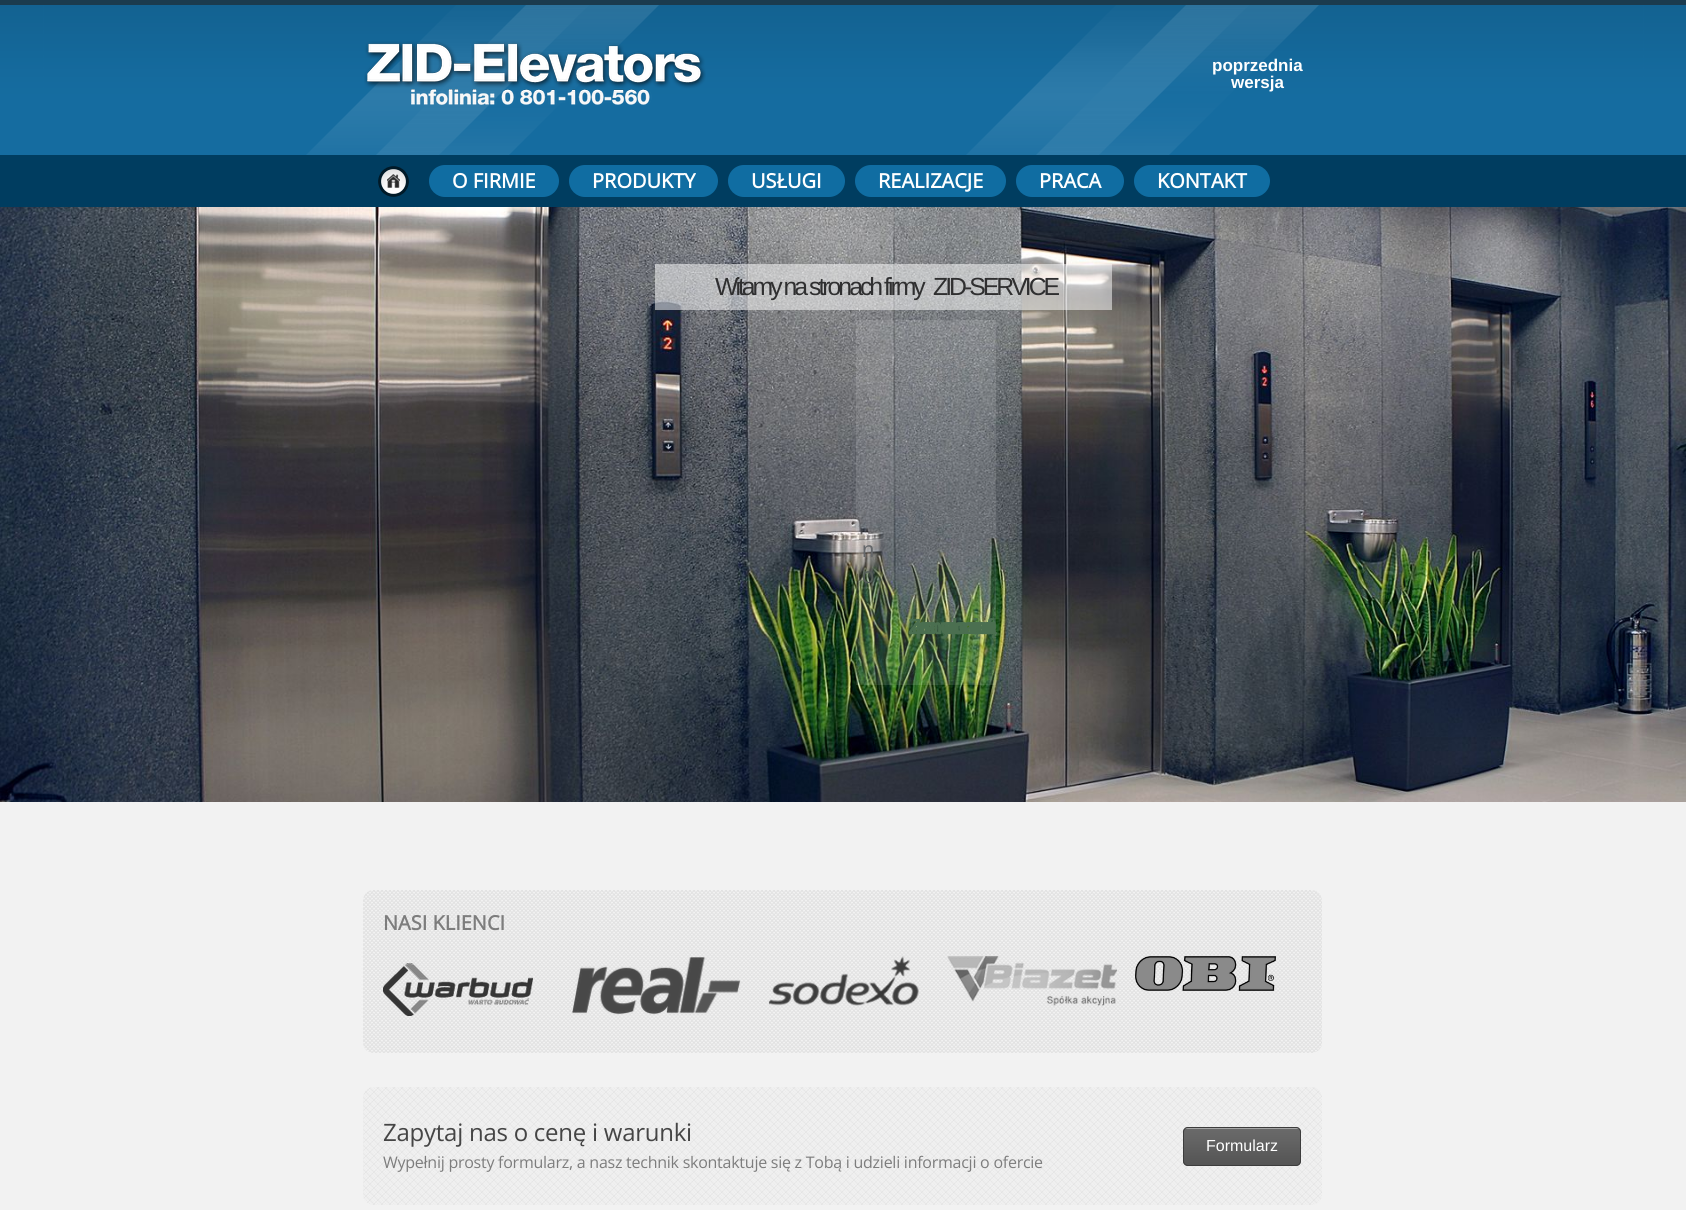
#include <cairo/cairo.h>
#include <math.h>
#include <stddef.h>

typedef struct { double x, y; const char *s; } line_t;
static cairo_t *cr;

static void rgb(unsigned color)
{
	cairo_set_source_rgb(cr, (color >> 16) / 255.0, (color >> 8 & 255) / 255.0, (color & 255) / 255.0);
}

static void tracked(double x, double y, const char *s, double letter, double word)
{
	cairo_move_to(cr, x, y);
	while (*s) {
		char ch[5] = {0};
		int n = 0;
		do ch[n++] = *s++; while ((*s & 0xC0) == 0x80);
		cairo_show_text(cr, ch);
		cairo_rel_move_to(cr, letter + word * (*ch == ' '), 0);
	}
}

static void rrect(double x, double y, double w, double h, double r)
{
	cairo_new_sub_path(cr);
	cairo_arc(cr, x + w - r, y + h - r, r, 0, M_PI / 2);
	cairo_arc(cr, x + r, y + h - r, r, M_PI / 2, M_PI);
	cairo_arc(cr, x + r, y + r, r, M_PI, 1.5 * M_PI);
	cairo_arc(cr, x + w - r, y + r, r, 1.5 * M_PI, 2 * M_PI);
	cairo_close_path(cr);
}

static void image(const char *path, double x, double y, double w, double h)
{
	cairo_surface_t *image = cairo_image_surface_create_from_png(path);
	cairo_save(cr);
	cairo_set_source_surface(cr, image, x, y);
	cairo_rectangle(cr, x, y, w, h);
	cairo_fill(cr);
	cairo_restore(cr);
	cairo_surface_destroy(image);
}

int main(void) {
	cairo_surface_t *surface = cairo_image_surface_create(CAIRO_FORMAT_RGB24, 1686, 1210);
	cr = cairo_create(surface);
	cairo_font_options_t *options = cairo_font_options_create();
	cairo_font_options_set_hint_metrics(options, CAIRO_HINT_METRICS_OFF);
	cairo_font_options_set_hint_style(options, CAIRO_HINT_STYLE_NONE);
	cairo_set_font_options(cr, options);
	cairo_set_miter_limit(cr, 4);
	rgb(0xf2f2f2);
	cairo_paint(cr);
	rgb(0x156ca0);
	cairo_rectangle(cr, 0, 5, 1686, 150);
	cairo_fill(cr);
	image("img/1.png", 0, 5, 1686, 150);
	rgb(0x1b3b4e);
	cairo_rectangle(cr, 0, 0, 1686, 5);
	cairo_fill(cr);
	image("img/2.png", 364, 41, 342, 64);
	rgb(0x003d60);
	cairo_rectangle(cr, 0, 155, 1686, 52);
	cairo_fill(cr);
	image("img/3.png", 378, 166, 31, 31);
	rgb(0x106da2);
	rrect(429, 165, 130, 32, 16);
	cairo_fill(cr);
	rrect(569, 165, 149, 32, 16);
	cairo_fill(cr);
	rrect(728, 165, 117, 32, 16);
	cairo_fill(cr);
	rrect(855, 165, 151, 32, 16);
	cairo_fill(cr);
	rrect(1016, 165, 108, 32, 16);
	cairo_fill(cr);
	rrect(1134, 165, 136, 32, 16);
	cairo_fill(cr);
	image("img/4.png", 0, 207, 1686, 595);
	cairo_set_source_rgba(cr, 1, 1, 1, 0.51);
	cairo_rectangle(cr, 655, 264, 457, 46);
	cairo_fill(cr);
	cairo_set_source_rgba(cr, 1, 1, 1, 0.12);
	cairo_rectangle(cr, 856, 320, 140, 365);
	cairo_fill(cr);
	image("img/5.png", 363, 890, 959, 163);
	image("img/6.png", 383, 963, 150, 53);
	image("img/7.png", 572, 957, 169, 58);
	image("img/8.png", 768, 956, 151, 50);
	image("img/9.png", 947, 956, 170, 50);
	image("img/10.png", 1135, 956, 141, 35);
	image("img/11.png", 363, 1087, 959, 118);
	rgb(0x696969);
	rrect(1183, 1127, 118, 39, 5);
	cairo_fill(cr);
	image("img/12.png", 1183, 1128, 118, 38);
	rrect(1183.5, 1127.5, 117, 38, 4.5);
	rgb(0x3c3c3c);
	cairo_set_line_width(cr, 1);
	cairo_stroke(cr);
	cairo_select_font_face(cr, "Liberation Sans", CAIRO_FONT_SLANT_NORMAL, CAIRO_FONT_WEIGHT_BOLD);
	cairo_set_font_size(cr, 17);
	rgb(0xffffff);
	cairo_move_to(cr, 1212, 71);
	cairo_show_text(cr, "poprzednia");
	cairo_move_to(cr, 1231, 88);
	cairo_show_text(cr, "wersja");
	cairo_select_font_face(cr, "Open Sans", CAIRO_FONT_SLANT_NORMAL, CAIRO_FONT_WEIGHT_BOLD);
	cairo_set_font_size(cr, 20);
	{
		static const line_t items[] = {
			{452, 188, "O FIRMIE"},
			{592, 188, "PRODUKTY"},
			{751, 188, "USŁUGI"},
			{878, 188, "REALIZACJE"},
			{1039, 188, "PRACA"},
			{1157, 188, "KONTAKT"},
		};
		for (size_t i = 0; i < sizeof items / sizeof *items; i++) {
			cairo_move_to(cr, items[i].x, items[i].y);
			cairo_show_text(cr, items[i].s);
		}
	}
	cairo_select_font_face(cr, "Liberation Sans", CAIRO_FONT_SLANT_NORMAL, CAIRO_FONT_WEIGHT_NORMAL);
	cairo_set_font_size(cr, 24.8);
	rgb(0x2f2f30);
	tracked(715, 295, "Witamy na stronach firmy", -3, 0);
	tracked(933, 295, "ZID-SERVICE", -3, 0);
	cairo_set_font_size(cr, 22);
	rgb(0x64676a);
	tracked(862, 557, "n", -9, 0);
	rgb(0x555d58);
	tracked(862, 583, "o", -9, 0);
	cairo_select_font_face(cr, "Liberation Sans", CAIRO_FONT_SLANT_NORMAL, CAIRO_FONT_WEIGHT_BOLD);
	rgb(0x4b6f50);
	tracked(908, 634, "Zapraszamy od zapoznania", -9.2, 0);
	tracked(970, 634, "się", -9.2, 0);
	tracked(971, 634, "z nasza ofertą", -9.2, 0);
	cairo_select_font_face(cr, "Open Sans", CAIRO_FONT_SLANT_NORMAL, CAIRO_FONT_WEIGHT_BOLD);
	cairo_set_font_size(cr, 20);
	rgb(0x7d7d7d);
	cairo_move_to(cr, 383, 930);
	cairo_show_text(cr, "NASI KLIENCI");
	cairo_select_font_face(cr, "Open Sans", CAIRO_FONT_SLANT_NORMAL, CAIRO_FONT_WEIGHT_NORMAL);
	cairo_set_font_size(cr, 24);
	rgb(0x454545);
	tracked(383, 1141, "Zapytaj nas o cenę i warunki", -0.25, 0);
	cairo_set_font_size(cr, 16);
	rgb(0x7d7d7d);
	tracked(383, 1168, "Wypełnij prosty formularz, a nasz technik skontaktuje się z Tobą i udzieli informacji o ofercie", -0.25, 0);
	cairo_select_font_face(cr, "Liberation Sans", CAIRO_FONT_SLANT_NORMAL, CAIRO_FONT_WEIGHT_NORMAL);
	rgb(0xffffff);
	cairo_move_to(cr, 1206, 1151);
	cairo_show_text(cr, "Formularz");
	cairo_surface_write_to_png(surface, "page.png");
	cairo_font_options_destroy(options);
	cairo_destroy(cr);
	cairo_surface_destroy(surface);
	return 0;
}
